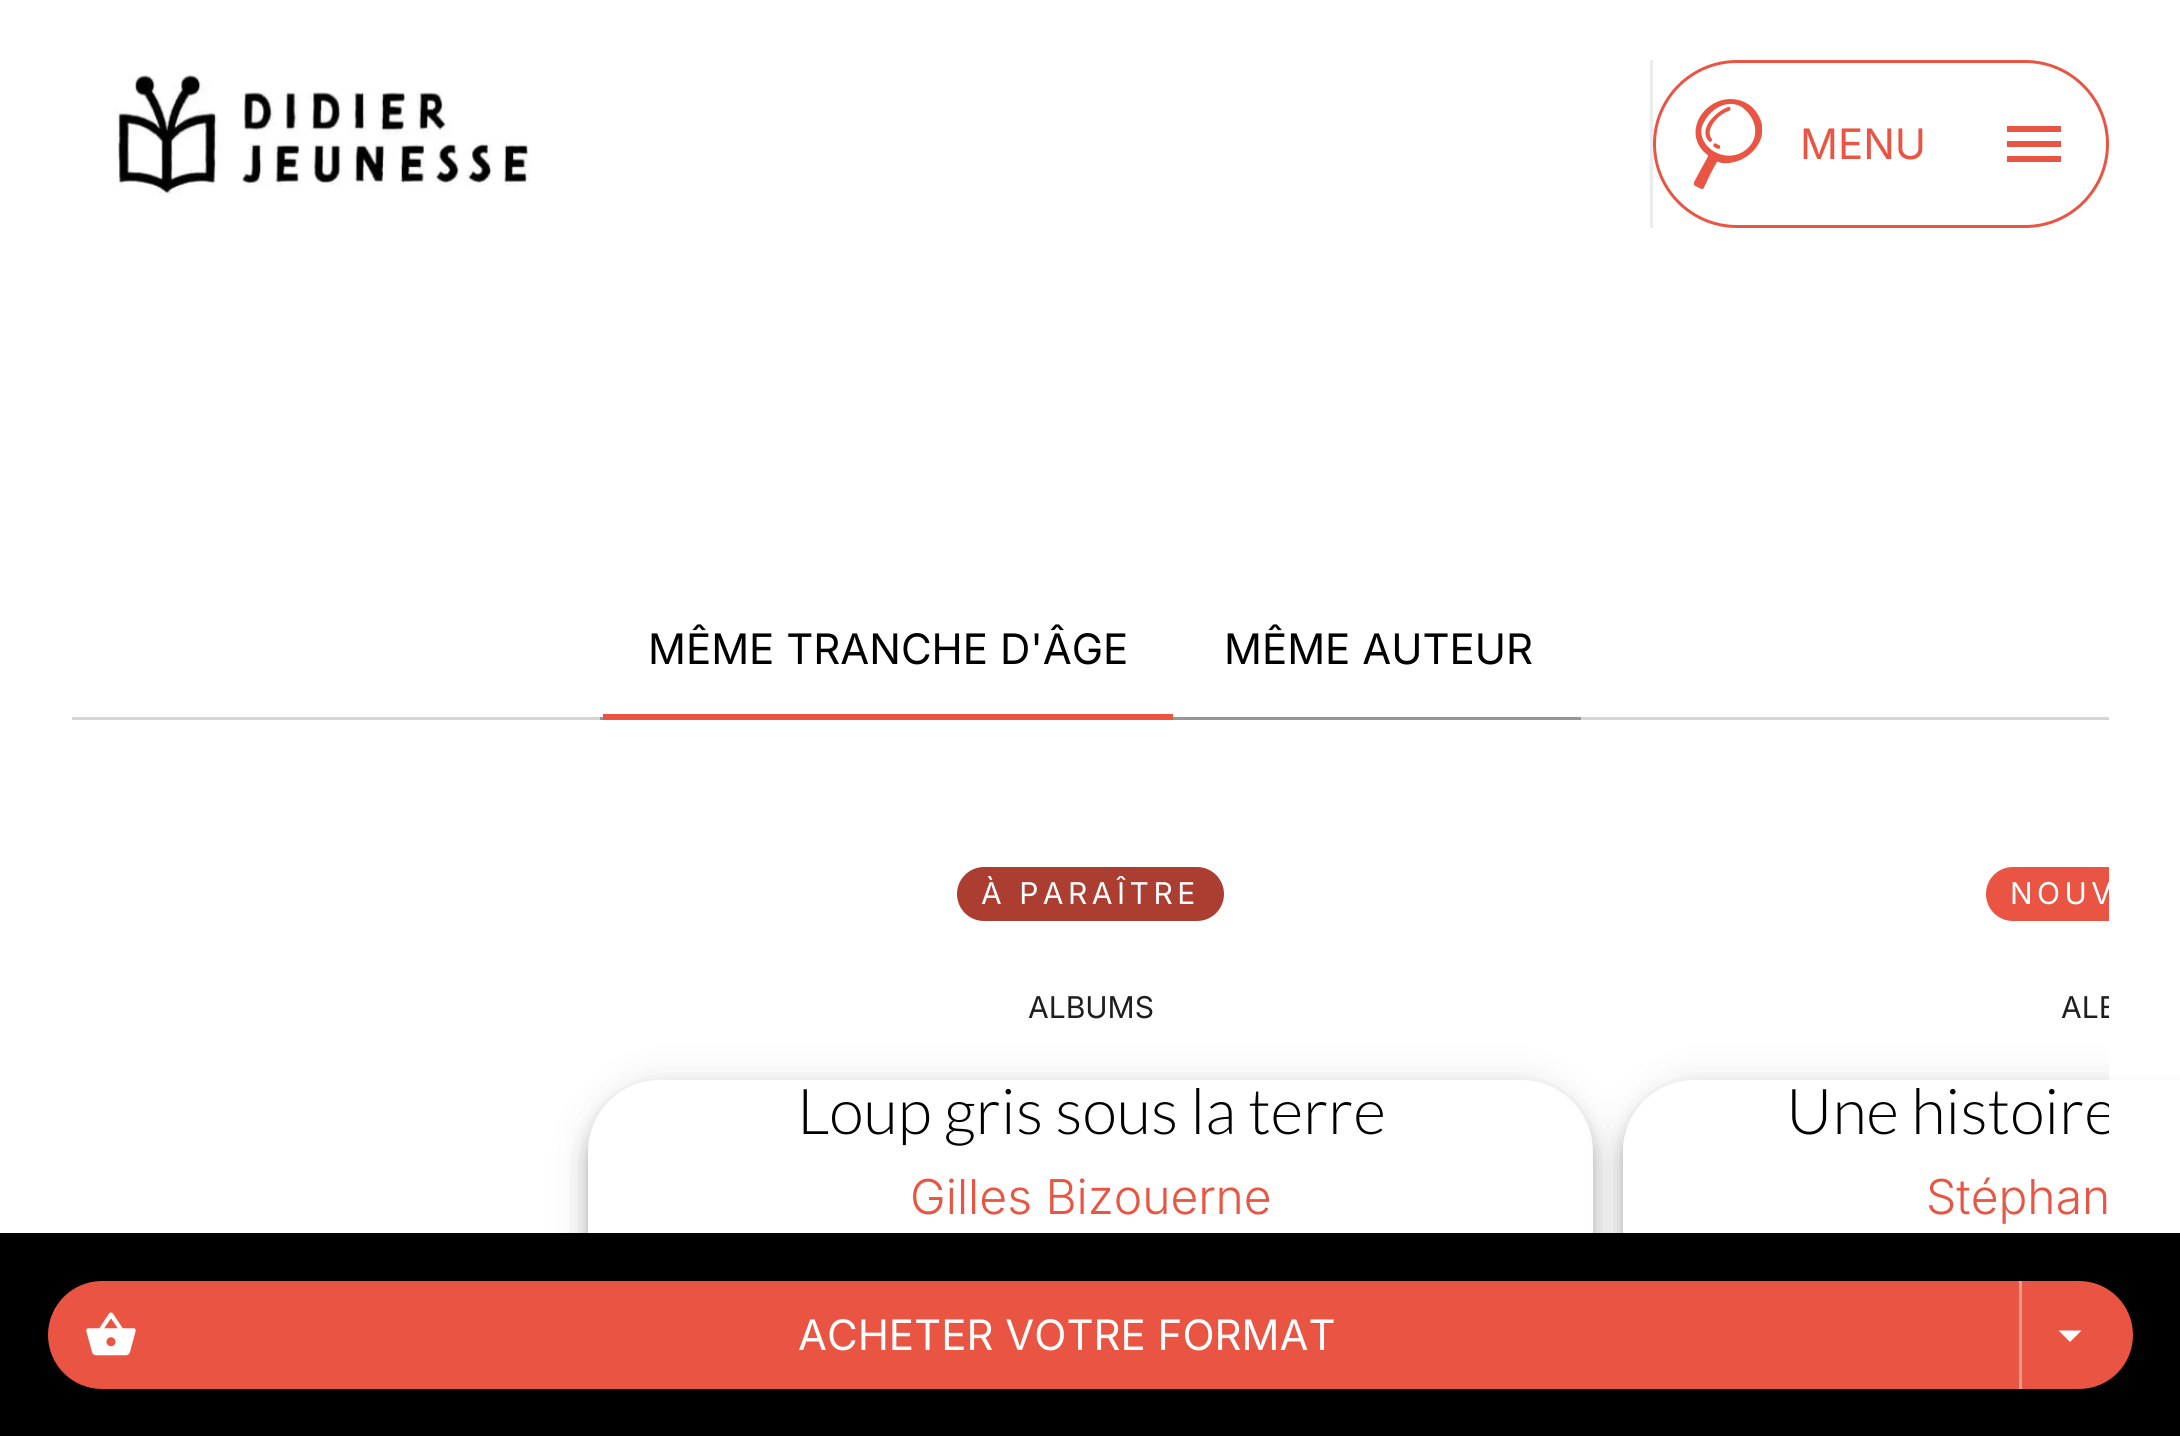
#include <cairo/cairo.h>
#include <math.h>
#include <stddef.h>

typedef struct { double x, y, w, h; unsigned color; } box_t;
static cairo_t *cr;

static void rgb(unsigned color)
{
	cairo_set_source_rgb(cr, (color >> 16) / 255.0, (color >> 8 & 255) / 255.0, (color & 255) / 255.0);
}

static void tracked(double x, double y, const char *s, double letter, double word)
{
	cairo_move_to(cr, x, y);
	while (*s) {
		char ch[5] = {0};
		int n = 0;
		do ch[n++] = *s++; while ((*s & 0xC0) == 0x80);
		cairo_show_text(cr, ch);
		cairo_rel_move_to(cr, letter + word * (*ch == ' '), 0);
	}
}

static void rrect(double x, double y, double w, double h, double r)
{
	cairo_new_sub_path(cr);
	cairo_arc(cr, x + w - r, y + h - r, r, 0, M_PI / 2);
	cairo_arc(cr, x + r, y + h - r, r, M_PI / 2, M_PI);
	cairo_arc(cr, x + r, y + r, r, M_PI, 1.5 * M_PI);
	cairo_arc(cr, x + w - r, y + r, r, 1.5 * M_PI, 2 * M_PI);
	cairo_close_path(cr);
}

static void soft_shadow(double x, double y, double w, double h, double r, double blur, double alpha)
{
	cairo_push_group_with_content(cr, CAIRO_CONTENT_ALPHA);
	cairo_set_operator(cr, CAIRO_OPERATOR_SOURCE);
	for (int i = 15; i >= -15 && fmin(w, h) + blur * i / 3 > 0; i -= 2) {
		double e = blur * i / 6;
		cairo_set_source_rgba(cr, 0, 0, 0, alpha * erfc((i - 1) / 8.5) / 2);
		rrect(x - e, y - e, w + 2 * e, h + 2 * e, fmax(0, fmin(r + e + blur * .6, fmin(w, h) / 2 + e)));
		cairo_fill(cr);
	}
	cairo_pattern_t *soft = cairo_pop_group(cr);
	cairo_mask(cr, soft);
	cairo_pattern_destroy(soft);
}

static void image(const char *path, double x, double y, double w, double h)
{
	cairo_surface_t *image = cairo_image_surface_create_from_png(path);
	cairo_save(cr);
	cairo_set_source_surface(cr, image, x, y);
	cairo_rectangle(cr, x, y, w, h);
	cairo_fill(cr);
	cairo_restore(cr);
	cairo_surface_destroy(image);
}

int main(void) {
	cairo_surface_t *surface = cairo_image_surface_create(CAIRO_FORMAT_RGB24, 2180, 1436);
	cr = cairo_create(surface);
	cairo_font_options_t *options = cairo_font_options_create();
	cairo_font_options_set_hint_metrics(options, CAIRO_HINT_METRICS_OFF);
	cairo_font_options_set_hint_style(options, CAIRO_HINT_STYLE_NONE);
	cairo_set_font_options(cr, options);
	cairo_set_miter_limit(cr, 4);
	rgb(0xffffff);
	cairo_paint(cr);
	image("img/1.png", 115, 75, 415, 120);
	rgb(0xebebeb);
	cairo_rectangle(cr, 1650, 60, 3, 168);
	cairo_fill(cr);
	rrect(1654.5, 61.5, 453, 165, 82.5);
	rgb(0xea5443);
	cairo_set_line_width(cr, 3);
	cairo_stroke(cr);
	image("img/2.png", 1694, 99, 68, 90);
	cairo_new_path(cr);
	cairo_move_to(cr, 2007, 126);
	cairo_line_to(cr, 2061, 126);
	cairo_line_to(cr, 2061, 132);
	cairo_line_to(cr, 2007, 132);
	cairo_close_path(cr);
	cairo_move_to(cr, 2007, 147);
	cairo_line_to(cr, 2007, 141);
	cairo_line_to(cr, 2061, 141);
	cairo_line_to(cr, 2061, 147);
	cairo_close_path(cr);
	cairo_move_to(cr, 2007, 162);
	cairo_line_to(cr, 2007, 156);
	cairo_line_to(cr, 2061, 156);
	cairo_line_to(cr, 2061, 162);
	cairo_close_path(cr);
	cairo_fill(cr);
	{
		static const box_t items[] = {
			{72, 717, 2037, 3, 0xd6d6d6},
			{600, 717, 981, 3, 0x969696},
			{603, 714, 570, 6, 0xea5443},
		};
		for (size_t i = 0; i < sizeof items / sizeof *items; i++) {
			rgb(items[i].color);
			cairo_rectangle(cr, items[i].x, items[i].y, items[i].w, items[i].h);
			cairo_fill(cr);
		}
	}
	rgb(0xab3e31);
	rrect(957, 867, 267, 54, 27);
	cairo_fill(cr);
	rgb(0x000000);
	soft_shadow(588, 1083, 1005, 264, 72, 21, 0.12);
	soft_shadow(588, 1095, 1005, 264, 72, 12, 0.14);
	soft_shadow(591, 1092, 999, 258, 69, 7.5, 0.2);
	rgb(0xffffff);
	rrect(588, 1080, 1005, 264, 72);
	cairo_fill(cr);
	rgb(0xea5443);
	cairo_new_path(cr);
	cairo_move_to(cr, 2013, 867);
	cairo_line_to(cr, 2109, 867);
	cairo_line_to(cr, 2109, 921);
	cairo_line_to(cr, 2013, 921);
	cairo_curve_to(cr, 1998, 921, 1986, 909, 1986, 894);
	cairo_curve_to(cr, 1986, 879, 1998, 867, 2013, 867);
	cairo_close_path(cr);
	cairo_fill(cr);
	cairo_save(cr);
	cairo_rectangle(cr, 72, 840, 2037, 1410);
	cairo_clip(cr);
	rgb(0x000000);
	soft_shadow(1623, 1083, 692, 264, 72, 21, 0.12);
	cairo_restore(cr);
	cairo_save(cr);
	cairo_set_fill_rule(cr, CAIRO_FILL_RULE_EVEN_ODD);
	cairo_new_path(cr);
	cairo_move_to(cr, 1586, 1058);
	cairo_line_to(cr, 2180, 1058);
	cairo_line_to(cr, 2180, 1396);
	cairo_line_to(cr, 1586, 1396);
	cairo_close_path(cr);
	cairo_move_to(cr, 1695, 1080);
	cairo_line_to(cr, 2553, 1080);
	cairo_curve_to(cr, 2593, 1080, 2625, 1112, 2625, 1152);
	cairo_line_to(cr, 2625, 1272);
	cairo_curve_to(cr, 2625, 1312, 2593, 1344, 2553, 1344);
	cairo_line_to(cr, 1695, 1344);
	cairo_curve_to(cr, 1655, 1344, 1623, 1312, 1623, 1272);
	cairo_line_to(cr, 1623, 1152);
	cairo_curve_to(cr, 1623, 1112, 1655, 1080, 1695, 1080);
	cairo_close_path(cr);
	cairo_clip(cr);
	rgb(0x000000);
	soft_shadow(1623, 1095, 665, 264, 72, 12, 0.14);
	cairo_restore(cr);
	cairo_save(cr);
	cairo_set_fill_rule(cr, CAIRO_FILL_RULE_EVEN_ODD);
	cairo_new_path(cr);
	cairo_move_to(cr, 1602, 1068);
	cairo_line_to(cr, 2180, 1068);
	cairo_line_to(cr, 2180, 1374);
	cairo_line_to(cr, 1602, 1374);
	cairo_close_path(cr);
	cairo_move_to(cr, 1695, 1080);
	cairo_line_to(cr, 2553, 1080);
	cairo_curve_to(cr, 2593, 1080, 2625, 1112, 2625, 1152);
	cairo_line_to(cr, 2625, 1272);
	cairo_curve_to(cr, 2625, 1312, 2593, 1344, 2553, 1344);
	cairo_line_to(cr, 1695, 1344);
	cairo_curve_to(cr, 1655, 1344, 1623, 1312, 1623, 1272);
	cairo_line_to(cr, 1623, 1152);
	cairo_curve_to(cr, 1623, 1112, 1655, 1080, 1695, 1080);
	cairo_close_path(cr);
	cairo_clip(cr);
	rgb(0x000000);
	soft_shadow(1626, 1092, 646, 258, 69, 7.5, 0.2);
	cairo_restore(cr);
	rgb(0xffffff);
	cairo_new_path(cr);
	cairo_move_to(cr, 1695, 1080);
	cairo_line_to(cr, 2109, 1080);
	cairo_line_to(cr, 2109, 1344);
	cairo_line_to(cr, 1695, 1344);
	cairo_curve_to(cr, 1655, 1344, 1623, 1312, 1623, 1272);
	cairo_line_to(cr, 1623, 1152);
	cairo_curve_to(cr, 1623, 1112, 1655, 1080, 1695, 1080);
	cairo_close_path(cr);
	cairo_fill(cr);
	rgb(0x000000);
	cairo_rectangle(cr, 0, 1233, 2180, 203);
	cairo_fill(cr);
	rgb(0xea5443);
	rrect(48, 1281, 2085, 108, 54);
	cairo_fill(cr);
	image("img/3.png", 86, 1312, 50, 44);
	rgb(0xf2988e);
	cairo_rectangle(cr, 2019, 1281, 3, 108);
	cairo_fill(cr);
	rgb(0xffffff);
	cairo_new_path(cr);
	cairo_move_to(cr, 2058.5, 1330.5);
	cairo_line_to(cr, 2081.5, 1330.5);
	cairo_line_to(cr, 2070, 1342);
	cairo_close_path(cr);
	cairo_fill(cr);
	cairo_select_font_face(cr, "Inter", CAIRO_FONT_SLANT_NORMAL, CAIRO_FONT_WEIGHT_NORMAL);
	cairo_set_font_size(cr, 42);
	rgb(0xea5443);
	cairo_move_to(cr, 1800, 159);
	cairo_show_text(cr, "MENU");
	rgb(0x000000);
	cairo_move_to(cr, 648, 664);
	cairo_show_text(cr, "MÊME TRANCHE D'ÂGE");
	cairo_move_to(cr, 1224, 664);
	cairo_show_text(cr, "MÊME AUTEUR");
	cairo_save(cr);
	cairo_rectangle(cr, 957, 876, 267, 36);
	cairo_clip(cr);
	cairo_set_font_size(cr, 30);
	rgb(0xffffff);
	tracked(981, 904, "À PARAÎTRE", 4.5, 0);
	cairo_restore(cr);
	cairo_set_font_size(cr, 30);
	rgb(0x1e1e1e);
	cairo_move_to(cr, 1028, 1018);
	cairo_show_text(cr, "ALBUMS");
	cairo_select_font_face(cr, "Lato Light", CAIRO_FONT_SLANT_NORMAL, CAIRO_FONT_WEIGHT_NORMAL);
	cairo_set_font_size(cr, 63.25);
	rgb(0x000000);
	cairo_move_to(cr, 797, 1134);
	cairo_show_text(cr, "Loup gris sous la terre");
	cairo_select_font_face(cr, "Inter Light", CAIRO_FONT_SLANT_NORMAL, CAIRO_FONT_WEIGHT_NORMAL);
	cairo_set_font_size(cr, 48);
	rgb(0xea5443);
	cairo_move_to(cr, 910, 1214);
	cairo_show_text(cr, "Gilles Bizouerne");
	cairo_save(cr);
	cairo_rectangle(cr, 1986, 876, 123, 36);
	cairo_clip(cr);
	cairo_select_font_face(cr, "Inter", CAIRO_FONT_SLANT_NORMAL, CAIRO_FONT_WEIGHT_NORMAL);
	cairo_set_font_size(cr, 30);
	rgb(0xffffff);
	tracked(2010, 904, "NOUV", 4.5, 0);
	cairo_restore(cr);
	cairo_save(cr);
	cairo_rectangle(cr, 72, 840, 2037, 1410);
	cairo_clip(cr);
	cairo_select_font_face(cr, "Inter", CAIRO_FONT_SLANT_NORMAL, CAIRO_FONT_WEIGHT_NORMAL);
	cairo_set_font_size(cr, 30);
	rgb(0x1e1e1e);
	cairo_move_to(cr, 2061, 1018);
	cairo_show_text(cr, "ALB");
	cairo_select_font_face(cr, "Lato Light", CAIRO_FONT_SLANT_NORMAL, CAIRO_FONT_WEIGHT_NORMAL);
	cairo_set_font_size(cr, 63.25);
	rgb(0x000000);
	cairo_move_to(cr, 1786, 1134);
	cairo_show_text(cr, "Une histoire");
	cairo_restore(cr);
	cairo_move_to(cr, 1926, 1214);
	cairo_show_text(cr, "Stéphan");
	cairo_select_font_face(cr, "Inter", CAIRO_FONT_SLANT_NORMAL, CAIRO_FONT_WEIGHT_NORMAL);
	cairo_set_font_size(cr, 42);
	rgb(0xffffff);
	cairo_move_to(cr, 798, 1350);
	cairo_show_text(cr, "ACHETER VOTRE FORMAT");
	cairo_surface_write_to_png(surface, "page.png");
	cairo_font_options_destroy(options);
	cairo_destroy(cr);
	cairo_surface_destroy(surface);
	return 0;
}
